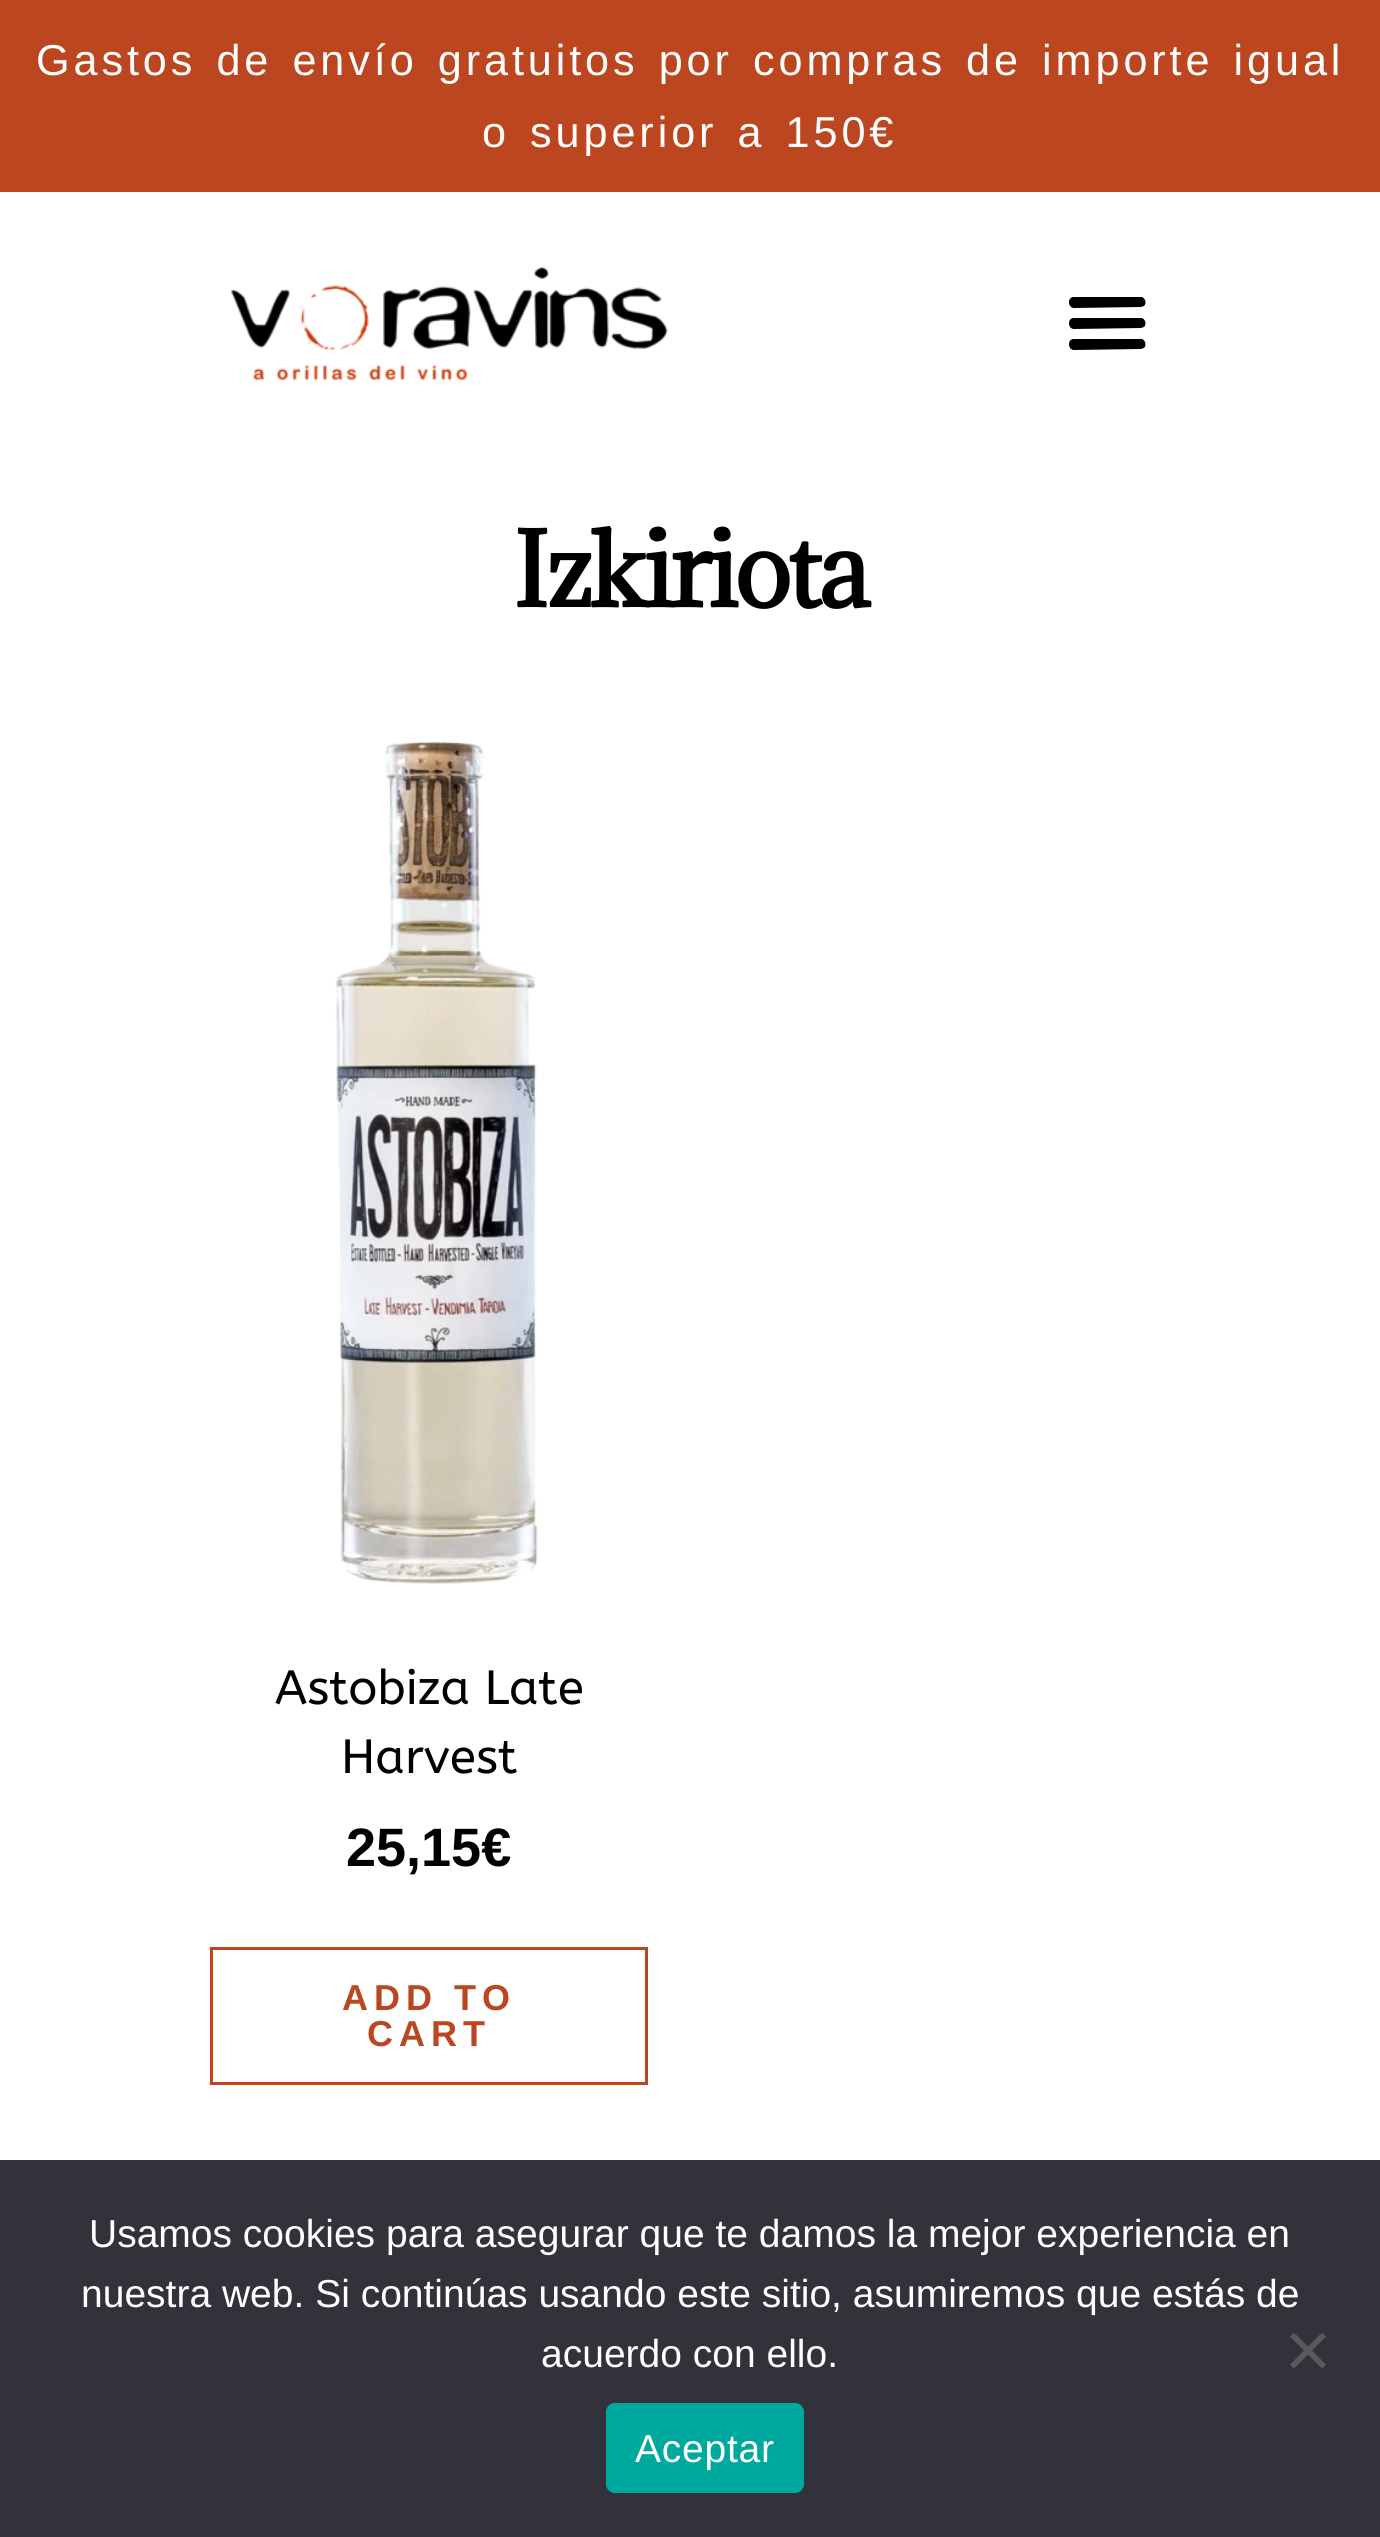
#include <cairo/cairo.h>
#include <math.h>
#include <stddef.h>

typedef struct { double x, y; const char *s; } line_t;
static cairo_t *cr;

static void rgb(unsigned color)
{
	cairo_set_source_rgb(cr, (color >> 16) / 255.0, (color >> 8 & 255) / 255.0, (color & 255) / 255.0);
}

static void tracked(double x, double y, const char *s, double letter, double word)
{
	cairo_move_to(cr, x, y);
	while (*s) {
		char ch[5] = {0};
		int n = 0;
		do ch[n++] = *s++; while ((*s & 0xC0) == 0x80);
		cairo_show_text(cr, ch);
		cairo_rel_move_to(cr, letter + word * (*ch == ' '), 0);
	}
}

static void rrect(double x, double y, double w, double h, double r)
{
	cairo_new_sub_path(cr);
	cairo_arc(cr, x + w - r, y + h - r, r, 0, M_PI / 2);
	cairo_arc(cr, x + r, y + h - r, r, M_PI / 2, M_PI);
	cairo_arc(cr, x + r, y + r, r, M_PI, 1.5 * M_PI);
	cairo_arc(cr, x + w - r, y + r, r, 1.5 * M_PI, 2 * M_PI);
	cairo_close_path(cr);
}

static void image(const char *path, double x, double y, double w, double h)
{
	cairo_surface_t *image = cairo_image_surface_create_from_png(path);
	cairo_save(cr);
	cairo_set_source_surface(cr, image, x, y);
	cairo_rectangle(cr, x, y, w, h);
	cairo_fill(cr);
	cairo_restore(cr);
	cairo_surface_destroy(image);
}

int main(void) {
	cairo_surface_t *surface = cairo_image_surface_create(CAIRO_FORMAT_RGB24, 1380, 2537);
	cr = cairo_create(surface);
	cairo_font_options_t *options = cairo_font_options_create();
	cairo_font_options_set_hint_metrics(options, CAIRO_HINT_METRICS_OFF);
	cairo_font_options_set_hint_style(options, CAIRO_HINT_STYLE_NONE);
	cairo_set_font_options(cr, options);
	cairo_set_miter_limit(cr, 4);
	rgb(0xffffff);
	cairo_paint(cr);
	rgb(0xbc4620);
	cairo_rectangle(cr, 0, 0, 1380, 192);
	cairo_fill(cr);
	image("img/1.png", 231, 266, 437, 115);
	rgb(0x000000);
	cairo_new_path(cr);
	cairo_move_to(cr, 1074, 308);
	cairo_line_to(cr, 1141, 307);
	cairo_line_to(cr, 1144, 306);
	cairo_curve_to(cr, 1147, 303, 1145, 298, 1142, 297);
	cairo_line_to(cr, 1073, 297);
	cairo_curve_to(cr, 1067, 298, 1068, 308, 1074, 308);
	cairo_close_path(cr);
	cairo_move_to(cr, 1074, 329);
	cairo_line_to(cr, 1141, 328);
	cairo_line_to(cr, 1144, 327);
	cairo_curve_to(cr, 1147, 324, 1145, 319, 1142, 318);
	cairo_line_to(cr, 1073, 318);
	cairo_curve_to(cr, 1067, 319, 1068, 329, 1074, 329);
	cairo_close_path(cr);
	cairo_move_to(cr, 1074, 350);
	cairo_line_to(cr, 1141, 349);
	cairo_line_to(cr, 1144, 348);
	cairo_curve_to(cr, 1147, 345, 1145, 340, 1142, 339);
	cairo_line_to(cr, 1073, 339);
	cairo_curve_to(cr, 1067, 340, 1068, 350, 1074, 350);
	cairo_close_path(cr);
	cairo_fill(cr);
	image("img/2.png", 335, 741, 203, 843);
	cairo_rectangle(cr, 211.5, 1948.5, 435, 135);
	rgb(0xbc4620);
	cairo_set_line_width(cr, 3);
	cairo_stroke(cr);
	rgb(0x32323a);
	cairo_rectangle(cr, 0, 2160, 1380, 377);
	cairo_fill(cr);
	rgb(0x59595d);
	cairo_new_path(cr);
	cairo_move_to(cr, 1322, 2332.5);
	cairo_line_to(cr, 1326, 2336.5);
	cairo_line_to(cr, 1294, 2368.5);
	cairo_line_to(cr, 1290, 2364.5);
	cairo_close_path(cr);
	cairo_fill(cr);
	cairo_new_path(cr);
	cairo_move_to(cr, 1290, 2336.5);
	cairo_line_to(cr, 1294, 2332.5);
	cairo_line_to(cr, 1326, 2364.5);
	cairo_line_to(cr, 1322, 2368.5);
	cairo_close_path(cr);
	cairo_fill(cr);
	rgb(0x00a99d);
	rrect(606, 2403, 198, 90, 9);
	cairo_fill(cr);
	cairo_select_font_face(cr, "Liberation Sans", CAIRO_FONT_SLANT_NORMAL, CAIRO_FONT_WEIGHT_NORMAL);
	cairo_set_font_size(cr, 43.2);
	rgb(0xffffff);
	tracked(36, 75, "Gastos de envío gratuitos por compras de importe igual", 3.9, 4.25);
	tracked(482, 147, "o superior a 150€", 3.9, 4.25);
	cairo_select_font_face(cr, "Adamina", CAIRO_FONT_SLANT_NORMAL, CAIRO_FONT_WEIGHT_BOLD);
	cairo_set_font_size(cr, 96);
	rgb(0x000000);
	tracked(513, 607, "Izkiriota", -3.5, 0);
	cairo_select_font_face(cr, "ABeeZee", CAIRO_FONT_SLANT_NORMAL, CAIRO_FONT_WEIGHT_NORMAL);
	cairo_set_font_size(cr, 48);
	cairo_move_to(cr, 275, 1704);
	cairo_show_text(cr, "Astobiza Late");
	cairo_move_to(cr, 341, 1773);
	cairo_show_text(cr, "Harvest");
	cairo_select_font_face(cr, "Liberation Sans", CAIRO_FONT_SLANT_NORMAL, CAIRO_FONT_WEIGHT_BOLD);
	cairo_set_font_size(cr, 54);
	cairo_move_to(cr, 346, 1866);
	cairo_show_text(cr, "25,15€");
	cairo_set_font_size(cr, 36);
	rgb(0xbc4620);
	tracked(342, 2010, "ADD TO", 6, 0);
	tracked(367, 2046, "CART", 6, 0);
	cairo_select_font_face(cr, "Liberation Sans", CAIRO_FONT_SLANT_NORMAL, CAIRO_FONT_WEIGHT_NORMAL);
	cairo_set_font_size(cr, 39);
	rgb(0xffffff);
	{
		static const line_t items[] = {
			{89, 2247, "Usamos cookies para asegurar que te damos la mejor experiencia en"},
			{81, 2307, "nuestra web. Si continúas usando este sitio, asumiremos que estás de"},
			{541, 2367, "acuerdo con ello."},
		};
		for (size_t i = 0; i < sizeof items / sizeof *items; i++) {
			cairo_move_to(cr, items[i].x, items[i].y);
			cairo_show_text(cr, items[i].s);
		}
	}
	tracked(635, 2462, "Aceptar", 0.75, 0);
	cairo_surface_write_to_png(surface, "page.png");
	cairo_font_options_destroy(options);
	cairo_destroy(cr);
	cairo_surface_destroy(surface);
	return 0;
}
